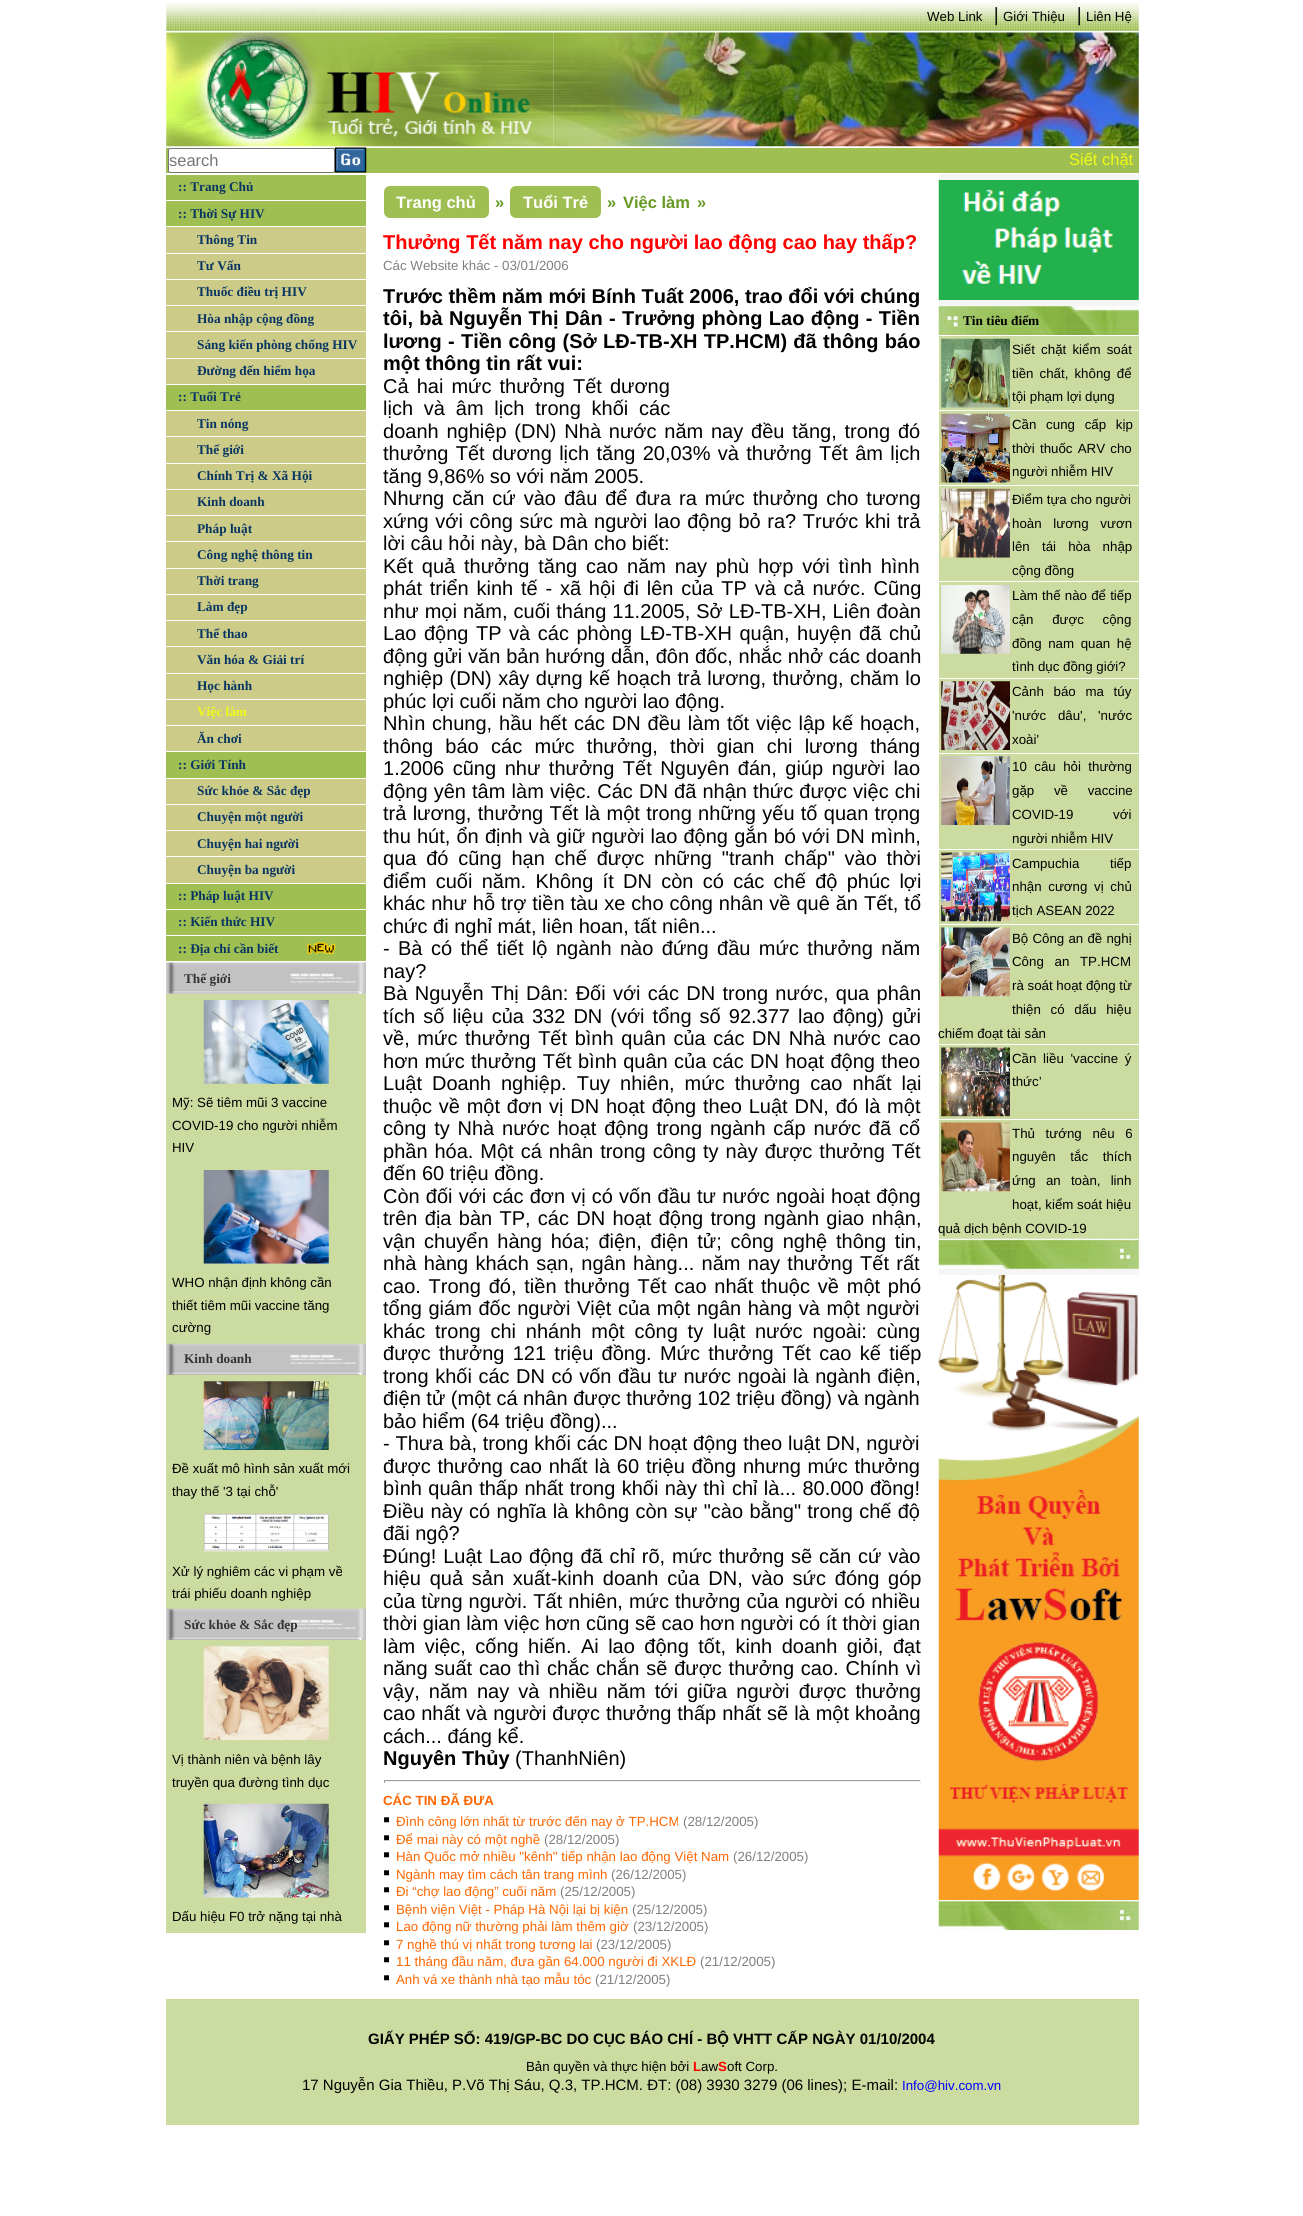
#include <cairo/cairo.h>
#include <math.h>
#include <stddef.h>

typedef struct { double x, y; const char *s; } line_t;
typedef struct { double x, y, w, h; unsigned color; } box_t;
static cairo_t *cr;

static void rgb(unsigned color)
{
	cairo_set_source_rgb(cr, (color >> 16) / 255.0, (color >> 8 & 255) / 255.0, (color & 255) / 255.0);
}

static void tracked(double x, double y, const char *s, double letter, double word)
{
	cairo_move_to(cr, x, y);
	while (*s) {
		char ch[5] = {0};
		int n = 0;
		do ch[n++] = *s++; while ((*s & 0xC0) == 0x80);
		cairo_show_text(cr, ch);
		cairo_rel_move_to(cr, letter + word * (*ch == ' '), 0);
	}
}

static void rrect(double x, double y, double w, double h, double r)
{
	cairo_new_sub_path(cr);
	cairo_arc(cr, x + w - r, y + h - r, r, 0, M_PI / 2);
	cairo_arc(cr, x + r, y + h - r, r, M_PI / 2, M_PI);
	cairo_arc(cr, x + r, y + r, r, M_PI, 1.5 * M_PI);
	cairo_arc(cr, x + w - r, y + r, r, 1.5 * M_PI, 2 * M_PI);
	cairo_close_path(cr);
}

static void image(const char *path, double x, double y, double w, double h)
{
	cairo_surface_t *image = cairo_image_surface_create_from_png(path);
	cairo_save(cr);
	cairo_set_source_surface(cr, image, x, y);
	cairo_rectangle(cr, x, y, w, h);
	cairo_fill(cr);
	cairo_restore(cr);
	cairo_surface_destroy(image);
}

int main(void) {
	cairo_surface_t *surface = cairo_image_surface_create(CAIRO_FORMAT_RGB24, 1303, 2216);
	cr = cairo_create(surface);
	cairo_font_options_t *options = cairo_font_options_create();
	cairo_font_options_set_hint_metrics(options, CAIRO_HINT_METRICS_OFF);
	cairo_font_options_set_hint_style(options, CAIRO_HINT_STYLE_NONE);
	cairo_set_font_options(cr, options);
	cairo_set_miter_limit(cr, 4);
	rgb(0xffffff);
	cairo_paint(cr);
	image("img/1.png", 166, 2, 973, 29);
	image("img/2.png", 166, 32, 388, 115);
	image("img/3.png", 553, 32, 586, 115);
	rgb(0xa0bf52);
	cairo_rectangle(cr, 166, 148, 973, 25);
	cairo_fill(cr);
	rgb(0xffffff);
	rrect(168.5, 148.5, 166, 24, 2);
	cairo_fill_preserve(cr);
	rgb(0x767676);
	cairo_set_line_width(cr, 1);
	cairo_stroke(cr);
	image("img/4.png", 335, 147, 32, 26);
	{
		static const box_t items[] = {
			{166, 962, 200, 678, 0xf5f5f5},
			{166, 175, 200, 25, 0xa0bf52},
			{166, 201, 200, 25, 0xa0bf52},
			{166, 227, 200, 26, 0xcccc88},
			{166, 254, 200, 25, 0xcccc88},
			{166, 280, 200, 25, 0xcccc88},
			{166, 306, 200, 25, 0xcccc88},
			{166, 332, 200, 26, 0xcccc88},
			{166, 359, 200, 25, 0xcccc88},
			{166, 385, 200, 25, 0xa0bf52},
			{166, 411, 200, 25, 0xcccc88},
			{166, 437, 200, 26, 0xcccc88},
			{166, 464, 200, 25, 0xcccc88},
			{166, 490, 200, 25, 0xcccc88},
			{166, 516, 200, 25, 0xcccc88},
			{166, 542, 200, 26, 0xcccc88},
			{166, 569, 200, 25, 0xcccc88},
			{166, 595, 200, 25, 0xcccc88},
			{166, 621, 200, 25, 0xcccc88},
			{166, 647, 200, 26, 0xcccc88},
			{166, 674, 200, 25, 0xcccc88},
			{166, 700, 200, 25, 0xcccc88},
			{166, 726, 200, 25, 0xcccc88},
			{166, 752, 200, 26, 0xa0bf52},
			{166, 779, 200, 25, 0xcccc88},
			{166, 805, 200, 25, 0xcccc88},
			{166, 831, 200, 25, 0xcccc88},
			{166, 857, 200, 26, 0xcccc88},
			{166, 884, 200, 25, 0xa0bf52},
			{166, 910, 200, 25, 0xa0bf52},
			{166, 936, 200, 25, 0xa0bf52},
		};
		for (size_t i = 0; i < sizeof items / sizeof *items; i++) {
			rgb(items[i].color);
			cairo_rectangle(cr, items[i].x, items[i].y, items[i].w, items[i].h);
			cairo_fill(cr);
		}
	}
	image("img/5.png", 307, 942, 29, 12);
	image("img/6.png", 166, 962, 200, 32);
	rgb(0xccdca0);
	cairo_rectangle(cr, 166, 994, 200, 350);
	cairo_fill(cr);
	image("img/7.png", 203, 1000, 126, 84);
	image("img/8.png", 203, 1170, 126, 94);
	image("img/9.png", 166, 1343, 200, 32);
	cairo_rectangle(cr, 166, 1375, 200, 234);
	cairo_fill(cr);
	image("img/10.png", 203, 1381, 126, 69);
	image("img/11.png", 203, 1513, 126, 39);
	image("img/9.png", 166, 1608, 200, 32);
	cairo_rectangle(cr, 166, 1640, 200, 293);
	cairo_fill(cr);
	image("img/12.png", 203, 1646, 126, 94);
	image("img/13.png", 203, 1803, 126, 95);
	rgb(0xa0bf52);
	rrect(384, 186, 105, 32, 6);
	cairo_fill(cr);
	rrect(510, 186, 91, 32, 6);
	cairo_fill(cr);
	{
		static const box_t items[] = {
			{384, 1780, 537, 1, 0x9f9f9f},
			{920, 1780, 1, 3, 0xeeeeee},
			{384, 1781, 537, 1, 0xeeeeee},
			{384, 1780, 1, 3, 0x9f9f9f},
			{939, 174, 200, 1756, 0xf5f5f5},
		};
		for (size_t i = 0; i < sizeof items / sizeof *items; i++) {
			rgb(items[i].color);
			cairo_rectangle(cr, items[i].x, items[i].y, items[i].w, items[i].h);
			cairo_fill(cr);
		}
	}
	image("img/14.png", 938, 180, 201, 120);
	image("img/15.png", 938, 306, 201, 29);
	rgb(0xccdca0);
	cairo_rectangle(cr, 939, 336, 200, 903);
	cairo_fill(cr);
	rgb(0xffffff);
	cairo_rectangle(cr, 939, 335, 200, 1);
	cairo_fill(cr);
	image("img/16.png", 941, 338, 69, 70);
	cairo_rectangle(cr, 939, 410, 200, 1);
	cairo_fill(cr);
	image("img/17.png", 941, 413, 69, 70);
	cairo_rectangle(cr, 939, 485, 200, 1);
	cairo_fill(cr);
	image("img/18.png", 941, 488, 69, 70);
	cairo_rectangle(cr, 939, 581, 200, 1);
	cairo_fill(cr);
	image("img/19.png", 941, 585, 69, 69);
	cairo_rectangle(cr, 939, 678, 200, 1);
	cairo_fill(cr);
	image("img/20.png", 941, 681, 69, 69);
	cairo_rectangle(cr, 939, 753, 200, 1);
	cairo_fill(cr);
	image("img/21.png", 941, 756, 69, 69);
	cairo_rectangle(cr, 939, 849, 200, 1);
	cairo_fill(cr);
	image("img/22.png", 941, 852, 69, 70);
	cairo_rectangle(cr, 939, 924, 200, 1);
	cairo_fill(cr);
	image("img/23.png", 941, 927, 69, 70);
	cairo_rectangle(cr, 939, 1044, 200, 1);
	cairo_fill(cr);
	image("img/24.png", 941, 1047, 69, 70);
	cairo_rectangle(cr, 939, 1119, 200, 1);
	cairo_fill(cr);
	image("img/25.png", 941, 1122, 69, 70);
	image("img/26.png", 938, 1238, 201, 31);
	image("img/27.png", 938, 1275, 201, 625);
	image("img/28.png", 938, 1900, 201, 30);
	rgb(0xccdca0);
	cairo_rectangle(cr, 166, 1999, 973, 126);
	cairo_fill(cr);
	cairo_select_font_face(cr, "Liberation Sans", CAIRO_FONT_SLANT_NORMAL, CAIRO_FONT_WEIGHT_NORMAL);
	cairo_set_font_size(cr, 13.3);
	rgb(0x000000);
	cairo_move_to(cr, 927, 21);
	cairo_show_text(cr, "Web Link");
	cairo_select_font_face(cr, "Liberation Serif", CAIRO_FONT_SLANT_NORMAL, CAIRO_FONT_WEIGHT_BOLD);
	cairo_set_font_size(cr, 20);
	cairo_move_to(cr, 994, 21);
	cairo_show_text(cr, "|");
	cairo_select_font_face(cr, "Liberation Sans", CAIRO_FONT_SLANT_NORMAL, CAIRO_FONT_WEIGHT_NORMAL);
	cairo_set_font_size(cr, 13.3);
	cairo_move_to(cr, 1003, 21);
	cairo_show_text(cr, "Giới Thiệu");
	cairo_select_font_face(cr, "Liberation Serif", CAIRO_FONT_SLANT_NORMAL, CAIRO_FONT_WEIGHT_BOLD);
	cairo_set_font_size(cr, 20);
	cairo_move_to(cr, 1077, 21);
	cairo_show_text(cr, "|");
	cairo_select_font_face(cr, "Liberation Sans", CAIRO_FONT_SLANT_NORMAL, CAIRO_FONT_WEIGHT_NORMAL);
	cairo_set_font_size(cr, 13.3);
	cairo_move_to(cr, 1086, 21);
	cairo_show_text(cr, "Liên Hệ");
	cairo_set_font_size(cr, 16.5);
	rgb(0x757575);
	cairo_move_to(cr, 169, 166);
	cairo_show_text(cr, "search");
	rgb(0xf0fa15);
	cairo_move_to(cr, 1069, 165);
	cairo_show_text(cr, "Siết chặt");
	cairo_select_font_face(cr, "Liberation Serif", CAIRO_FONT_SLANT_NORMAL, CAIRO_FONT_WEIGHT_BOLD);
	cairo_set_font_size(cr, 13.3);
	rgb(0x093562);
	{
		static const line_t items[] = {
			{178, 191, ":: Trang Chủ"},
			{178, 218, ":: Thời Sự HIV"},
			{197, 244, "Thông Tin"},
			{197, 270, "Tư Vấn"},
			{197, 296, "Thuốc điều trị HIV"},
			{197, 323, "Hòa nhập cộng đồng"},
			{197, 349, "Sáng kiến phòng chống HIV"},
			{197, 375, "Đường đến hiểm họa"},
			{178, 401, ":: Tuổi Trẻ"},
			{197, 428, "Tin nóng"},
			{197, 454, "Thế giới"},
			{197, 480, "Chính Trị & Xã Hội"},
			{197, 506, "Kinh doanh"},
			{197, 533, "Pháp luật"},
			{197, 559, "Công nghệ thông tin"},
			{197, 585, "Thời trang"},
			{197, 611, "Làm đẹp"},
			{197, 638, "Thể thao"},
			{197, 664, "Văn hóa & Giải trí"},
			{197, 690, "Học hành"},
		};
		for (size_t i = 0; i < sizeof items / sizeof *items; i++) {
			cairo_move_to(cr, items[i].x, items[i].y);
			cairo_show_text(cr, items[i].s);
		}
	}
	rgb(0xf0fa15);
	cairo_move_to(cr, 197, 716);
	cairo_show_text(cr, "Việc làm");
	rgb(0x093562);
	{
		static const line_t items[] = {
			{197, 743, "Ăn chơi"},
			{178, 769, ":: Giới Tính"},
			{197, 795, "Sức khỏe & Sắc đẹp"},
			{197, 821, "Chuyện một người"},
			{197, 848, "Chuyện hai người"},
			{197, 874, "Chuyện ba người"},
			{178, 900, ":: Pháp luật HIV"},
			{178, 926, ":: Kiến thức HIV"},
			{178, 953, ":: Địa chỉ cần biết"},
		};
		for (size_t i = 0; i < sizeof items / sizeof *items; i++) {
			cairo_move_to(cr, items[i].x, items[i].y);
			cairo_show_text(cr, items[i].s);
		}
	}
	rgb(0x333333);
	cairo_move_to(cr, 184, 983);
	cairo_show_text(cr, "Thế giới");
	cairo_select_font_face(cr, "Liberation Sans", CAIRO_FONT_SLANT_NORMAL, CAIRO_FONT_WEIGHT_NORMAL);
	rgb(0x000000);
	{
		static const line_t items[] = {
			{172, 1107, "Mỹ: Sẽ tiêm mũi 3 vaccine"},
			{172, 1130, "COVID-19 cho người nhiễm"},
			{172, 1152, "HIV"},
			{172, 1287, "WHO nhận định không cần"},
			{172, 1310, "thiết tiêm mũi vaccine tăng"},
			{172, 1332, "cường"},
		};
		for (size_t i = 0; i < sizeof items / sizeof *items; i++) {
			cairo_move_to(cr, items[i].x, items[i].y);
			cairo_show_text(cr, items[i].s);
		}
	}
	cairo_select_font_face(cr, "Liberation Serif", CAIRO_FONT_SLANT_NORMAL, CAIRO_FONT_WEIGHT_BOLD);
	rgb(0x333333);
	cairo_move_to(cr, 184, 1363);
	cairo_show_text(cr, "Kinh doanh");
	cairo_select_font_face(cr, "Liberation Sans", CAIRO_FONT_SLANT_NORMAL, CAIRO_FONT_WEIGHT_NORMAL);
	rgb(0x000000);
	{
		static const line_t items[] = {
			{172, 1473, "Đề xuất mô hình sản xuất mới"},
			{172, 1496, "thay thế '3 tại chỗ'"},
			{172, 1576, "Xử lý nghiêm các vi phạm về"},
			{172, 1598, "trái phiếu doanh nghiệp"},
		};
		for (size_t i = 0; i < sizeof items / sizeof *items; i++) {
			cairo_move_to(cr, items[i].x, items[i].y);
			cairo_show_text(cr, items[i].s);
		}
	}
	cairo_select_font_face(cr, "Liberation Serif", CAIRO_FONT_SLANT_NORMAL, CAIRO_FONT_WEIGHT_BOLD);
	rgb(0x333333);
	cairo_move_to(cr, 184, 1629);
	cairo_show_text(cr, "Sức khỏe & Sắc đẹp");
	cairo_select_font_face(cr, "Liberation Sans", CAIRO_FONT_SLANT_NORMAL, CAIRO_FONT_WEIGHT_NORMAL);
	rgb(0x000000);
	{
		static const line_t items[] = {
			{172, 1764, "Vị thành niên và bệnh lây"},
			{172, 1787, "truyền qua đường tình dục"},
			{172, 1921, "Dấu hiệu F0 trở nặng tại nhà"},
		};
		for (size_t i = 0; i < sizeof items / sizeof *items; i++) {
			cairo_move_to(cr, items[i].x, items[i].y);
			cairo_show_text(cr, items[i].s);
		}
	}
	cairo_select_font_face(cr, "Liberation Sans", CAIRO_FONT_SLANT_NORMAL, CAIRO_FONT_WEIGHT_BOLD);
	cairo_set_font_size(cr, 16.5);
	rgb(0xffffff);
	cairo_move_to(cr, 396, 208);
	cairo_show_text(cr, "Trang chủ");
	rgb(0x669922);
	cairo_move_to(cr, 495, 208);
	cairo_show_text(cr, "»");
	rgb(0xffffff);
	cairo_move_to(cr, 523, 208);
	cairo_show_text(cr, "Tuổi Trẻ");
	rgb(0x669922);
	{
		static const line_t items[] = {
			{607, 208, "»"},
			{623, 208, "Việc làm"},
			{697, 208, "»"},
		};
		for (size_t i = 0; i < sizeof items / sizeof *items; i++) {
			cairo_move_to(cr, items[i].x, items[i].y);
			cairo_show_text(cr, items[i].s);
		}
	}
	cairo_set_font_size(cr, 20);
	rgb(0xff0000);
	cairo_move_to(cr, 383, 249);
	cairo_show_text(cr, "Thưởng Tết năm nay cho người lao động cao hay thấp?");
	cairo_select_font_face(cr, "Liberation Sans", CAIRO_FONT_SLANT_NORMAL, CAIRO_FONT_WEIGHT_NORMAL);
	cairo_set_font_size(cr, 13.3);
	rgb(0x808080);
	cairo_move_to(cr, 383, 270);
	cairo_show_text(cr, "Các Website khác - 03/01/2006");
	cairo_select_font_face(cr, "Liberation Sans", CAIRO_FONT_SLANT_NORMAL, CAIRO_FONT_WEIGHT_BOLD);
	cairo_set_font_size(cr, 20);
	rgb(0x000000);
	cairo_move_to(cr, 383, 303);
	cairo_show_text(cr, "Trước thềm năm mới Bính Tuất 2006, trao đổi với chúng");
	tracked(383, 325, "tôi, bà Nguyễn Thị Dân - Trưởng phòng Lao động - Tiền", 0, 0.75);
	tracked(383, 348, "lương - Tiền công (Sở LĐ-TB-XH TP.HCM) đã thông báo", 0, 0.75);
	cairo_move_to(cr, 383, 370);
	cairo_show_text(cr, "một thông tin rất vui:");
	cairo_select_font_face(cr, "Liberation Sans", CAIRO_FONT_SLANT_NORMAL, CAIRO_FONT_WEIGHT_NORMAL);
	tracked(383, 393, "Cả hai mức thưởng Tết dương", 0, 2.5);
	tracked(383, 415, "lịch và âm lịch trong khối các", 0, 5.25);
	tracked(383, 438, "doanh nghiệp (DN) Nhà nước năm nay đều tăng, trong đó", 0, 2.25);
	tracked(383, 460, "thưởng Tết dương lịch tăng 20,03% và thưởng Tết âm lịch", 0, 1.75);
	cairo_move_to(cr, 383, 483);
	cairo_show_text(cr, "tăng 9,86% so với năm 2005.");
	tracked(383, 505, "Nhưng căn cứ vào đâu để đưa ra mức thưởng cho tương", 0, 2.4);
	tracked(383, 528, "xứng với công sức mà người lao động bỏ ra? Trước khi trả", 0, 1.1);
	cairo_move_to(cr, 383, 550);
	cairo_show_text(cr, "lời câu hỏi này, bà Dân cho biết:");
	tracked(383, 573, "Kết quả thưởng tăng cao năm nay phù hợp với tình hình", 0, 3.25);
	tracked(383, 595, "phát triển kinh tế - xã hội đi lên của TP và cả nước. Cũng", 0, 2.25);
	tracked(383, 618, "như mọi năm, cuối tháng 11.2005, Sở LĐ-TB-XH, Liên đoàn", 0, 0.5);
	tracked(383, 640, "Lao động TP và các phòng LĐ-TB-XH quận, huyện đã chủ", 0, 2);
	tracked(383, 663, "động gửi văn bản hướng dẫn, đôn đốc, nhắc nhở các doanh", 0, 0.25);
	tracked(383, 685, "nghiệp (DN) xây dựng kế hoạch trả lương, thưởng, chăm lo", 0, 0.9);
	cairo_move_to(cr, 383, 708);
	cairo_show_text(cr, "phúc lợi cuối năm cho người lao động.");
	tracked(383, 730, "Nhìn chung, hầu hết các DN đều làm tốt việc lập kế hoạch,", 0, 1.3);
	tracked(383, 753, "thông báo các mức thưởng, thời gian chi lương tháng", 0, 6.75);
	tracked(383, 775, "1.2006 cũng như thưởng Tết Nguyên đán, giúp người lao", 0, 3);
	tracked(383, 798, "động yên tâm làm việc. Các DN đã nhận thức được việc chi", 0, 0.6);
	tracked(383, 820, "trả lương, thưởng Tết là một trong những yếu tố quan trọng", 0, 0.75);
	tracked(383, 843, "thu hút, ổn định và giữ người lao động gắn bó với DN mình,", 0, 0.6);
	tracked(383, 865, "qua đó cũng hạn chế được những \"tranh chấp\" vào thời", 0, 4.25);
	tracked(383, 888, "điểm cuối năm. Không ít DN còn có các chế độ phúc lợi", 0, 3.75);
	tracked(383, 910, "khác như hỗ trợ tiền tàu xe cho công nhân về quê ăn Tết, tổ", 0, 0.4);
	cairo_move_to(cr, 383, 933);
	cairo_show_text(cr, "chức đi nghỉ mát, liên hoan, tất niên...");
	cairo_move_to(cr, 383, 955);
	cairo_show_text(cr, "-");
	tracked(398, 955, "Bà có thể tiết lộ ngành nào đứng đầu mức thưởng năm", 0, 2.9);
	cairo_move_to(cr, 383, 978);
	cairo_show_text(cr, "nay?");
	tracked(383, 1000, "Bà Nguyễn Thị Dân: Đối với các DN trong nước, qua phân", 0, 1.75);
	tracked(383, 1023, "tích số liệu của 332 DN (với tổng số 92.377 lao động) gửi", 0, 2.5);
	tracked(383, 1045, "về, mức thưởng Tết bình quân của các DN Nhà nước cao", 0, 2.1);
	tracked(383, 1068, "hơn mức thưởng Tết bình quân của các DN hoạt động theo", 0, 0.75);
	tracked(383, 1090, "Luật Doanh nghiệp. Tuy nhiên, mức thưởng cao nhất lại", 0, 4.5);
	tracked(383, 1113, "thuộc về một đơn vị DN hoạt động theo Luật DN, đó là một", 0, 1.25);
	tracked(383, 1135, "công ty Nhà nước hoạt động trong ngành cấp nước đã cổ", 0, 2.25);
	tracked(383, 1158, "phần hóa. Một cá nhân trong công ty này được thưởng Tết", 0, 1.4);
	cairo_move_to(cr, 383, 1180);
	cairo_show_text(cr, "đến 60 triệu đồng.");
	tracked(383, 1203, "Còn đối với các đơn vị có vốn đầu tư nước ngoài hoạt động", 0, 0.6);
	tracked(383, 1225, "trên địa bàn TP, các DN hoạt động trong ngành giao nhận,", 0, 1.75);
	tracked(383, 1248, "vận chuyển hàng hóa; điện, điện tử; công nghệ thông tin,", 0, 3.25);
	tracked(383, 1270, "nhà hàng khách sạn, ngân hàng... năm nay thưởng Tết rất", 0, 1.75);
	tracked(383, 1293, "cao. Trong đó, tiền thưởng Tết cao nhất thuộc về một phó", 0, 2.25);
	tracked(383, 1315, "tổng giám đốc người Việt của một ngân hàng và một người", 0, 1);
	tracked(383, 1338, "khác trong chi nhánh một công ty luật nước ngoài: cùng", 0, 4.25);
	tracked(383, 1360, "được thưởng 121 triệu đồng. Mức thưởng Tết cao kế tiếp", 0, 2.75);
	tracked(383, 1383, "trong khối các DN có vốn đầu tư nước ngoài là ngành điện,", 0, 1);
	cairo_move_to(cr, 383, 1405);
	cairo_show_text(cr, "điện tử (một cá nhân được thưởng 102 triệu đồng) và ngành");
	cairo_move_to(cr, 383, 1428);
	cairo_show_text(cr, "bảo hiểm (64 triệu đồng)...");
	tracked(383, 1450, "- Thưa bà, trong khối các DN hoạt động theo luật DN, người", 0, 0.25);
	tracked(383, 1473, "được thưởng cao nhất là 60 triệu đồng nhưng mức thưởng", 0, 1.25);
	tracked(383, 1495, "bình quân thấp nhất trong khối này thì chỉ là... 80.000 đồng!", 0, 0.8);
	tracked(383, 1518, "Điều này có nghĩa là không còn sự \"cào bằng\" trong chế độ", 0, 0.75);
	cairo_move_to(cr, 383, 1540);
	cairo_show_text(cr, "đãi ngộ?");
	tracked(383, 1563, "Đúng! Luật Lao động đã chỉ rõ, mức thưởng sẽ căn cứ vào", 0, 1.25);
	tracked(383, 1585, "hiệu quả sản xuất-kinh doanh của DN, vào sức đóng góp", 0, 3.25);
	tracked(383, 1608, "của từng người. Tất nhiên, mức thưởng của người có nhiều", 0, 0.5);
	cairo_move_to(cr, 383, 1630);
	cairo_show_text(cr, "thời gian làm việc hơn cũng sẽ cao hơn người có ít thời gian");
	tracked(383, 1653, "làm việc, cống hiến. Ai lao động tốt, kinh doanh giỏi, đạt", 0, 3.9);
	tracked(383, 1675, "năng suất cao thì chắc chắn sẽ được thưởng cao. Chính vì", 0, 1.25);
	tracked(383, 1698, "vậy, năm nay và nhiều năm tới giữa người được thưởng", 0, 3.6);
	tracked(383, 1720, "cao nhất và người được thưởng thấp nhất sẽ là một khoảng", 0, 0.4);
	cairo_move_to(cr, 383, 1743);
	cairo_show_text(cr, "cách... đáng kể.");
	cairo_select_font_face(cr, "Liberation Sans", CAIRO_FONT_SLANT_NORMAL, CAIRO_FONT_WEIGHT_BOLD);
	cairo_move_to(cr, 383, 1765);
	cairo_show_text(cr, "Nguyên Thủy");
	cairo_select_font_face(cr, "Liberation Sans", CAIRO_FONT_SLANT_NORMAL, CAIRO_FONT_WEIGHT_NORMAL);
	cairo_move_to(cr, 515, 1765);
	cairo_show_text(cr, "(ThanhNiên)");
	cairo_select_font_face(cr, "Liberation Sans", CAIRO_FONT_SLANT_NORMAL, CAIRO_FONT_WEIGHT_BOLD);
	cairo_set_font_size(cr, 13.3);
	rgb(0xff6600);
	cairo_move_to(cr, 383, 1805);
	cairo_show_text(cr, "CÁC TIN ĐÃ ĐƯA");
	cairo_select_font_face(cr, "Liberation Sans", CAIRO_FONT_SLANT_NORMAL, CAIRO_FONT_WEIGHT_NORMAL);
	cairo_set_font_size(cr, 20);
	rgb(0x000000);
	cairo_move_to(cr, 383, 1826);
	cairo_show_text(cr, "▪");
	cairo_set_font_size(cr, 13.3);
	rgb(0xff6600);
	cairo_move_to(cr, 396, 1826);
	cairo_show_text(cr, "Đình công lớn nhất từ trước đến nay ở TP.HCM");
	rgb(0x808080);
	cairo_move_to(cr, 683, 1826);
	cairo_show_text(cr, "(28/12/2005)");
	cairo_set_font_size(cr, 20);
	rgb(0x000000);
	cairo_move_to(cr, 383, 1844);
	cairo_show_text(cr, "▪");
	cairo_set_font_size(cr, 13.3);
	rgb(0xff6600);
	cairo_move_to(cr, 396, 1844);
	cairo_show_text(cr, "Để mai này có một nghề");
	rgb(0x808080);
	cairo_move_to(cr, 544, 1844);
	cairo_show_text(cr, "(28/12/2005)");
	cairo_set_font_size(cr, 20);
	rgb(0x000000);
	cairo_move_to(cr, 383, 1861);
	cairo_show_text(cr, "▪");
	cairo_set_font_size(cr, 13.3);
	rgb(0xff6600);
	cairo_move_to(cr, 396, 1861);
	cairo_show_text(cr, "Hàn Quốc mở nhiều \"kênh\" tiếp nhận lao động Việt Nam");
	rgb(0x808080);
	cairo_move_to(cr, 733, 1861);
	cairo_show_text(cr, "(26/12/2005)");
	cairo_set_font_size(cr, 20);
	rgb(0x000000);
	cairo_move_to(cr, 383, 1879);
	cairo_show_text(cr, "▪");
	cairo_set_font_size(cr, 13.3);
	rgb(0xff6600);
	cairo_move_to(cr, 396, 1879);
	cairo_show_text(cr, "Ngành may tìm cách tân trang mình");
	rgb(0x808080);
	cairo_move_to(cr, 611, 1879);
	cairo_show_text(cr, "(26/12/2005)");
	cairo_set_font_size(cr, 20);
	rgb(0x000000);
	cairo_move_to(cr, 383, 1896);
	cairo_show_text(cr, "▪");
	cairo_set_font_size(cr, 13.3);
	rgb(0xff6600);
	cairo_move_to(cr, 396, 1896);
	cairo_show_text(cr, "Đi “chợ lao động” cuối năm");
	rgb(0x808080);
	cairo_move_to(cr, 560, 1896);
	cairo_show_text(cr, "(25/12/2005)");
	cairo_set_font_size(cr, 20);
	rgb(0x000000);
	cairo_move_to(cr, 383, 1914);
	cairo_show_text(cr, "▪");
	cairo_set_font_size(cr, 13.3);
	rgb(0xff6600);
	cairo_move_to(cr, 396, 1914);
	cairo_show_text(cr, "Bệnh viện Việt - Pháp Hà Nội lại bị kiện");
	rgb(0x808080);
	cairo_move_to(cr, 632, 1914);
	cairo_show_text(cr, "(25/12/2005)");
	cairo_set_font_size(cr, 20);
	rgb(0x000000);
	cairo_move_to(cr, 383, 1931);
	cairo_show_text(cr, "▪");
	cairo_set_font_size(cr, 13.3);
	rgb(0xff6600);
	cairo_move_to(cr, 396, 1931);
	cairo_show_text(cr, "Lao động nữ thường phải làm thêm giờ");
	rgb(0x808080);
	cairo_move_to(cr, 633, 1931);
	cairo_show_text(cr, "(23/12/2005)");
	cairo_set_font_size(cr, 20);
	rgb(0x000000);
	cairo_move_to(cr, 383, 1949);
	cairo_show_text(cr, "▪");
	cairo_set_font_size(cr, 13.3);
	rgb(0xff6600);
	cairo_move_to(cr, 396, 1949);
	cairo_show_text(cr, "7 nghề thú vị nhất trong tương lai");
	rgb(0x808080);
	cairo_move_to(cr, 596, 1949);
	cairo_show_text(cr, "(23/12/2005)");
	cairo_set_font_size(cr, 20);
	rgb(0x000000);
	cairo_move_to(cr, 383, 1966);
	cairo_show_text(cr, "▪");
	cairo_set_font_size(cr, 13.3);
	rgb(0xff6600);
	cairo_move_to(cr, 396, 1966);
	cairo_show_text(cr, "11 tháng đầu năm, đưa gần 64.000 người đi XKLĐ");
	rgb(0x808080);
	cairo_move_to(cr, 700, 1966);
	cairo_show_text(cr, "(21/12/2005)");
	cairo_set_font_size(cr, 20);
	rgb(0x000000);
	cairo_move_to(cr, 383, 1984);
	cairo_show_text(cr, "▪");
	cairo_set_font_size(cr, 13.3);
	rgb(0xff6600);
	cairo_move_to(cr, 396, 1984);
	cairo_show_text(cr, "Anh vá xe thành nhà tạo mẫu tóc");
	rgb(0x808080);
	cairo_move_to(cr, 595, 1984);
	cairo_show_text(cr, "(21/12/2005)");
	cairo_select_font_face(cr, "Liberation Serif", CAIRO_FONT_SLANT_NORMAL, CAIRO_FONT_WEIGHT_BOLD);
	rgb(0x000000);
	cairo_move_to(cr, 963, 325);
	cairo_show_text(cr, "Tin tiêu điểm");
	cairo_select_font_face(cr, "Liberation Sans", CAIRO_FONT_SLANT_NORMAL, CAIRO_FONT_WEIGHT_NORMAL);
	tracked(1012, 354, "Siết chặt kiểm soát", 0, 2.5);
	tracked(1012, 378, "tiền chất, không để", 0, 2.4);
	cairo_move_to(cr, 1012, 401);
	cairo_show_text(cr, "tội phạm lợi dụng");
	tracked(1012, 429, "Cần cung cấp kịp", 0, 6);
	tracked(1012, 453, "thời thuốc ARV cho", 0, 1.5);
	cairo_move_to(cr, 1012, 476);
	cairo_show_text(cr, "người nhiễm HIV");
	cairo_move_to(cr, 1012, 504);
	cairo_show_text(cr, "Điểm tựa cho người");
	tracked(1012, 528, "hoàn lương vươn", 0, 8);
	tracked(1012, 551, "lên tái hòa nhập", 0, 8.5);
	cairo_move_to(cr, 1012, 575);
	cairo_show_text(cr, "cộng đồng");
	tracked(1012, 600, "Làm thế nào để tiếp", 0, 0.5);
	tracked(1012, 624, "cận được cộng", 0, 15);
	tracked(1012, 648, "đồng nam quan hệ", 0, 2.9);
	cairo_move_to(cr, 1012, 671);
	cairo_show_text(cr, "tình dục đồng giới?");
	tracked(1012, 696, "Cảnh báo ma túy", 0, 6);
	tracked(1012, 720, "'nước dâu', 'nước", 0, 8);
	cairo_move_to(cr, 1012, 744);
	cairo_show_text(cr, "xoài'");
	tracked(1012, 771, "10 câu hỏi thường", 0, 3.75);
	tracked(1012, 795, "gặp về vaccine", 0, 16);
	tracked(1012, 819, "COVID-19 với", 0, 36);
	cairo_move_to(cr, 1012, 843);
	cairo_show_text(cr, "người nhiễm HIV");
	tracked(1012, 868, "Campuchia tiếp", 0, 27);
	tracked(1012, 891, "nhận cương vị chủ", 0, 3);
	cairo_move_to(cr, 1012, 915);
	cairo_show_text(cr, "tịch ASEAN 2022");
	tracked(1012, 943, "Bộ Công an đề nghị", 0, 0.5);
	tracked(1012, 966, "Công an TP.HCM", 0, 7);
	cairo_move_to(cr, 1012, 990);
	cairo_show_text(cr, "rà soát hoạt động từ");
	tracked(1012, 1014, "thiện có dấu hiệu", 0, 6);
	cairo_move_to(cr, 938, 1038);
	cairo_show_text(cr, "chiếm đoạt tài sản");
	tracked(1012, 1063, "Cần liều 'vaccine ý", 0, 3);
	cairo_move_to(cr, 1012, 1086);
	cairo_show_text(cr, "thức’");
	tracked(1012, 1138, "Thủ tướng nêu 6", 0, 7);
	tracked(1012, 1161, "nguyên tắc thích", 0, 11);
	tracked(1012, 1185, "ứng an toàn, linh", 0, 6.5);
	cairo_move_to(cr, 1012, 1209);
	cairo_show_text(cr, "hoạt, kiểm soát hiệu");
	cairo_move_to(cr, 938, 1233);
	cairo_show_text(cr, "quả dịch bệnh COVID-19");
	cairo_select_font_face(cr, "Liberation Sans", CAIRO_FONT_SLANT_NORMAL, CAIRO_FONT_WEIGHT_BOLD);
	cairo_set_font_size(cr, 15);
	cairo_move_to(cr, 368, 2044);
	cairo_show_text(cr, "GIẤY PHÉP SỐ: 419/GP-BC DO CỤC BÁO CHÍ - BỘ VHTT CẤP NGÀY 01/10/2004");
	cairo_select_font_face(cr, "Liberation Sans", CAIRO_FONT_SLANT_NORMAL, CAIRO_FONT_WEIGHT_NORMAL);
	cairo_set_font_size(cr, 13.3);
	cairo_move_to(cr, 526, 2071);
	cairo_show_text(cr, "Bản quyền và thực hiện bởi");
	cairo_select_font_face(cr, "Liberation Sans", CAIRO_FONT_SLANT_NORMAL, CAIRO_FONT_WEIGHT_BOLD);
	rgb(0xff0000);
	cairo_move_to(cr, 693, 2071);
	cairo_show_text(cr, "L");
	cairo_select_font_face(cr, "Liberation Sans", CAIRO_FONT_SLANT_NORMAL, CAIRO_FONT_WEIGHT_NORMAL);
	rgb(0x000000);
	cairo_move_to(cr, 701, 2071);
	cairo_show_text(cr, "aw");
	cairo_select_font_face(cr, "Liberation Sans", CAIRO_FONT_SLANT_NORMAL, CAIRO_FONT_WEIGHT_BOLD);
	rgb(0xff0000);
	cairo_move_to(cr, 718, 2071);
	cairo_show_text(cr, "S");
	cairo_select_font_face(cr, "Liberation Sans", CAIRO_FONT_SLANT_NORMAL, CAIRO_FONT_WEIGHT_NORMAL);
	rgb(0x000000);
	cairo_move_to(cr, 727, 2071);
	cairo_show_text(cr, "oft Corp.");
	cairo_set_font_size(cr, 15);
	cairo_move_to(cr, 302, 2090);
	cairo_show_text(cr, "17 Nguyễn Gia Thiều, P.Võ Thị Sáu, Q.3, TP.HCM. ĐT: (08) 3930 3279 (06 lines); E-mail:");
	cairo_set_font_size(cr, 13.3);
	rgb(0x0000ff);
	cairo_move_to(cr, 902, 2090);
	cairo_show_text(cr, "Info@hiv.com.vn");
	cairo_surface_write_to_png(surface, "page.png");
	cairo_font_options_destroy(options);
	cairo_destroy(cr);
	cairo_surface_destroy(surface);
	return 0;
}
